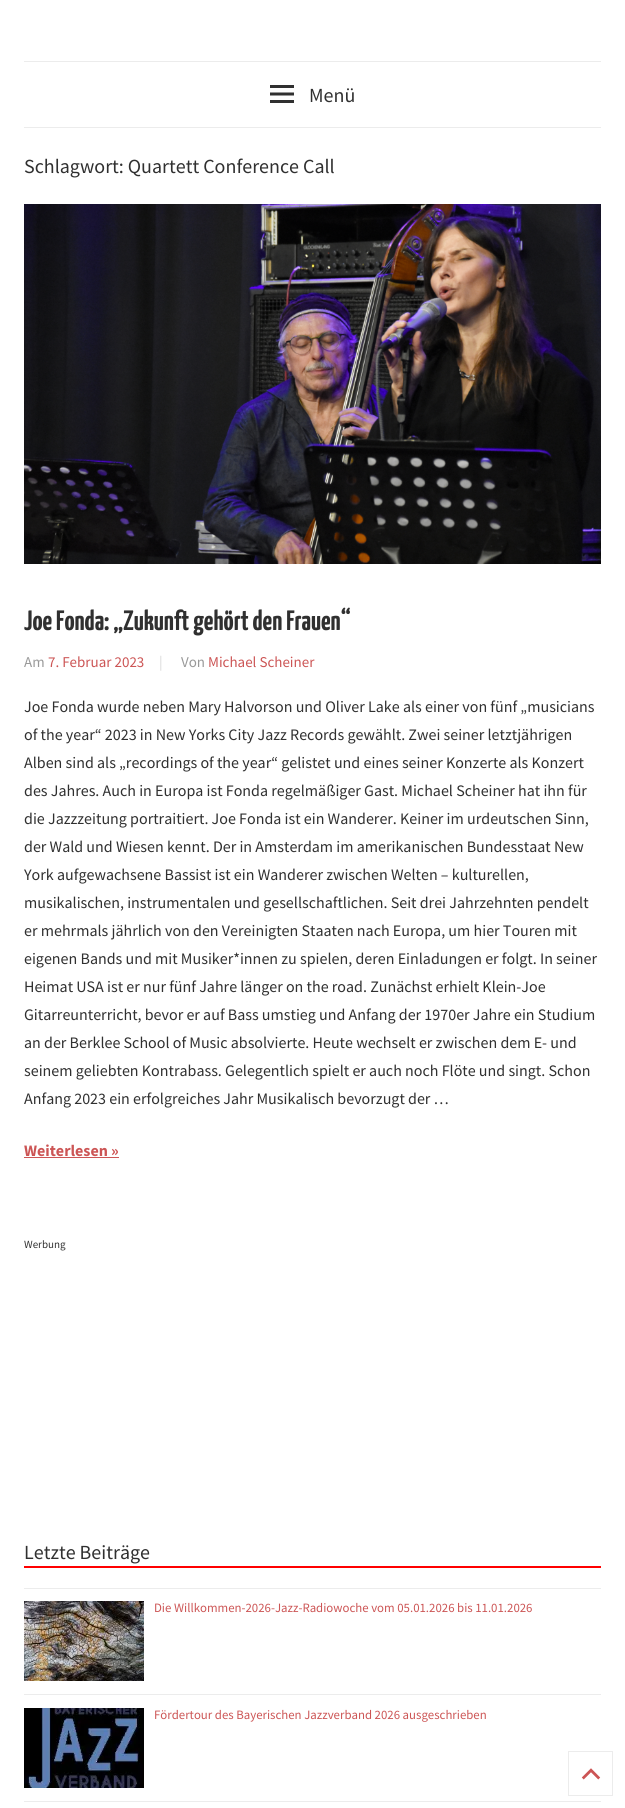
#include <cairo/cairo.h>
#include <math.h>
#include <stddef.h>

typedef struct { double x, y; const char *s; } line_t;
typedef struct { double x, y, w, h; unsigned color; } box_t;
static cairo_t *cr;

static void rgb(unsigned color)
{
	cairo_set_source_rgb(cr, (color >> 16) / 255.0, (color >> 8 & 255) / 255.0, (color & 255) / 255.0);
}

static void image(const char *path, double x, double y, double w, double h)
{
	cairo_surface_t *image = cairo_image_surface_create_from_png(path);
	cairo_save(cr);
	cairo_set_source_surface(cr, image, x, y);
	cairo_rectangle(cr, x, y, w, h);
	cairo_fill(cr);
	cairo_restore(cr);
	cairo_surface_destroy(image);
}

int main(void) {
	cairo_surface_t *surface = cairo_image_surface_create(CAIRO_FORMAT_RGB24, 625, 1808);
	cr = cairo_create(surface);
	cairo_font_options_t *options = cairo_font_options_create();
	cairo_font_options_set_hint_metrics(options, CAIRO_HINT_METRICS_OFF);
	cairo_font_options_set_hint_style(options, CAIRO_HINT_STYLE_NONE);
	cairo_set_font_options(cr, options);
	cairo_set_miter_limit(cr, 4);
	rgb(0xffffff);
	cairo_paint(cr);
	rgb(0xececec);
	cairo_rectangle(cr, 24, 127, 577, 1);
	cairo_fill(cr);
	cairo_rectangle(cr, 24, 61, 577, 1);
	cairo_fill(cr);
	image("img/1.png", 270, 85, 24, 18);
	image("img/2.png", 24, 204, 577, 360);
	{
		static const box_t items[] = {
			{24, 1157, 95, 1, 0xcc5555},
			{24, 1566, 577, 2, 0xff0000},
			{24, 1588, 577, 1, 0xececec},
			{24, 1694, 577, 1, 0xececec},
		};
		for (size_t i = 0; i < sizeof items / sizeof *items; i++) {
			rgb(items[i].color);
			cairo_rectangle(cr, items[i].x, items[i].y, items[i].w, items[i].h);
			cairo_fill(cr);
		}
	}
	image("img/3.png", 24, 1601, 120, 80);
	cairo_rectangle(cr, 24, 1801, 577, 1);
	cairo_fill(cr);
	image("img/4.png", 24, 1708, 120, 80);
	cairo_rectangle(cr, 568.5, 1751.5, 44, 44);
	cairo_set_line_width(cr, 1);
	cairo_stroke(cr);
	image("img/5.png", 581, 1768, 20, 12);
	cairo_select_font_face(cr, "Source Sans Pro", CAIRO_FONT_SLANT_NORMAL, CAIRO_FONT_WEIGHT_NORMAL);
	cairo_set_font_size(cr, 20);
	rgb(0x303030);
	cairo_move_to(cr, 309, 102);
	cairo_show_text(cr, "Menü");
	cairo_move_to(cr, 24, 173);
	cairo_show_text(cr, "Schlagwort: Quartett Conference Call");
	cairo_select_font_face(cr, "Yanone Kaffeesatz", CAIRO_FONT_SLANT_NORMAL, CAIRO_FONT_WEIGHT_BOLD);
	cairo_set_font_size(cr, 28);
	cairo_move_to(cr, 24, 630);
	cairo_show_text(cr, "Joe Fonda: „Zukunft gehört den Frauen“");
	cairo_select_font_face(cr, "Source Sans Pro", CAIRO_FONT_SLANT_NORMAL, CAIRO_FONT_WEIGHT_NORMAL);
	cairo_set_font_size(cr, 15);
	rgb(0x999999);
	cairo_move_to(cr, 24, 667);
	cairo_show_text(cr, "Am");
	rgb(0xcc5555);
	cairo_move_to(cr, 48, 667);
	cairo_show_text(cr, "7. Februar 2023");
	rgb(0xd9d9d9);
	cairo_move_to(cr, 159, 667);
	cairo_show_text(cr, "|");
	rgb(0x999999);
	cairo_move_to(cr, 181, 667);
	cairo_show_text(cr, "Von");
	rgb(0xcc5555);
	cairo_move_to(cr, 208, 667);
	cairo_show_text(cr, "Michael Scheiner");
	cairo_set_font_size(cr, 16);
	rgb(0x303030);
	{
		static const line_t items[] = {
			{24, 712, "Joe Fonda wurde neben Mary Halvorson und Oliver Lake als einer von fünf „musicians"},
			{24, 740, "of the year“ 2023 in New Yorks City Jazz Records gewählt. Zwei seiner letztjährigen"},
			{24, 768, "Alben sind als „recordings of the year“ gelistet und eines seiner Konzerte als Konzert"},
			{24, 796, "des Jahres. Auch in Europa ist Fonda regelmäßiger Gast. Michael Scheiner hat ihn für"},
			{24, 824, "die Jazzzeitung portraitiert. Joe Fonda ist ein Wanderer. Keiner im urdeutschen Sinn,"},
			{24, 852, "der Wald und Wiesen kennt. Der in Amsterdam im amerikanischen Bundesstaat New"},
			{24, 880, "York aufgewachsene Bassist ist ein Wanderer zwischen Welten – kulturellen,"},
			{24, 908, "musikalischen, instrumentalen und gesellschaftlichen. Seit drei Jahrzehnten pendelt"},
			{24, 936, "er mehrmals jährlich von den Vereinigten Staaten nach Europa, um hier Touren mit"},
			{24, 964, "eigenen Bands und mit Musiker*innen zu spielen, deren Einladungen er folgt. In seiner"},
			{24, 992, "Heimat USA ist er nur fünf Jahre länger on the road. Zunächst erhielt Klein-Joe"},
			{24, 1020, "Gitarreunterricht, bevor er auf Bass umstieg und Anfang der 1970er Jahre ein Studium"},
			{24, 1048, "an der Berklee School of Music absolvierte. Heute wechselt er zwischen dem E- und"},
			{24, 1076, "seinem geliebten Kontrabass. Gelegentlich spielt er auch noch Flöte und singt. Schon"},
			{24, 1104, "Anfang 2023 ein erfolgreiches Jahr Musikalisch bevorzugt der …"},
		};
		for (size_t i = 0; i < sizeof items / sizeof *items; i++) {
			cairo_move_to(cr, items[i].x, items[i].y);
			cairo_show_text(cr, items[i].s);
		}
	}
	cairo_select_font_face(cr, "Source Sans Pro", CAIRO_FONT_SLANT_NORMAL, CAIRO_FONT_WEIGHT_BOLD);
	rgb(0xcc5555);
	cairo_move_to(cr, 24, 1156);
	cairo_show_text(cr, "Weiterlesen »");
	cairo_select_font_face(cr, "Source Sans Pro", CAIRO_FONT_SLANT_NORMAL, CAIRO_FONT_WEIGHT_NORMAL);
	cairo_set_font_size(cr, 11);
	rgb(0x303030);
	cairo_move_to(cr, 24, 1248);
	cairo_show_text(cr, "Werbung");
	cairo_set_font_size(cr, 20);
	cairo_move_to(cr, 24, 1559);
	cairo_show_text(cr, "Letzte Beiträge");
	cairo_set_font_size(cr, 12.8);
	rgb(0xcc5555);
	cairo_move_to(cr, 154, 1612);
	cairo_show_text(cr, "Die Willkommen-2026-Jazz-Radiowoche vom 05.01.2026 bis 11.01.2026");
	cairo_move_to(cr, 154, 1719);
	cairo_show_text(cr, "Fördertour des Bayerischen Jazzverband 2026 ausgeschrieben");
	cairo_surface_write_to_png(surface, "page.png");
	cairo_font_options_destroy(options);
	cairo_destroy(cr);
	cairo_surface_destroy(surface);
	return 0;
}
